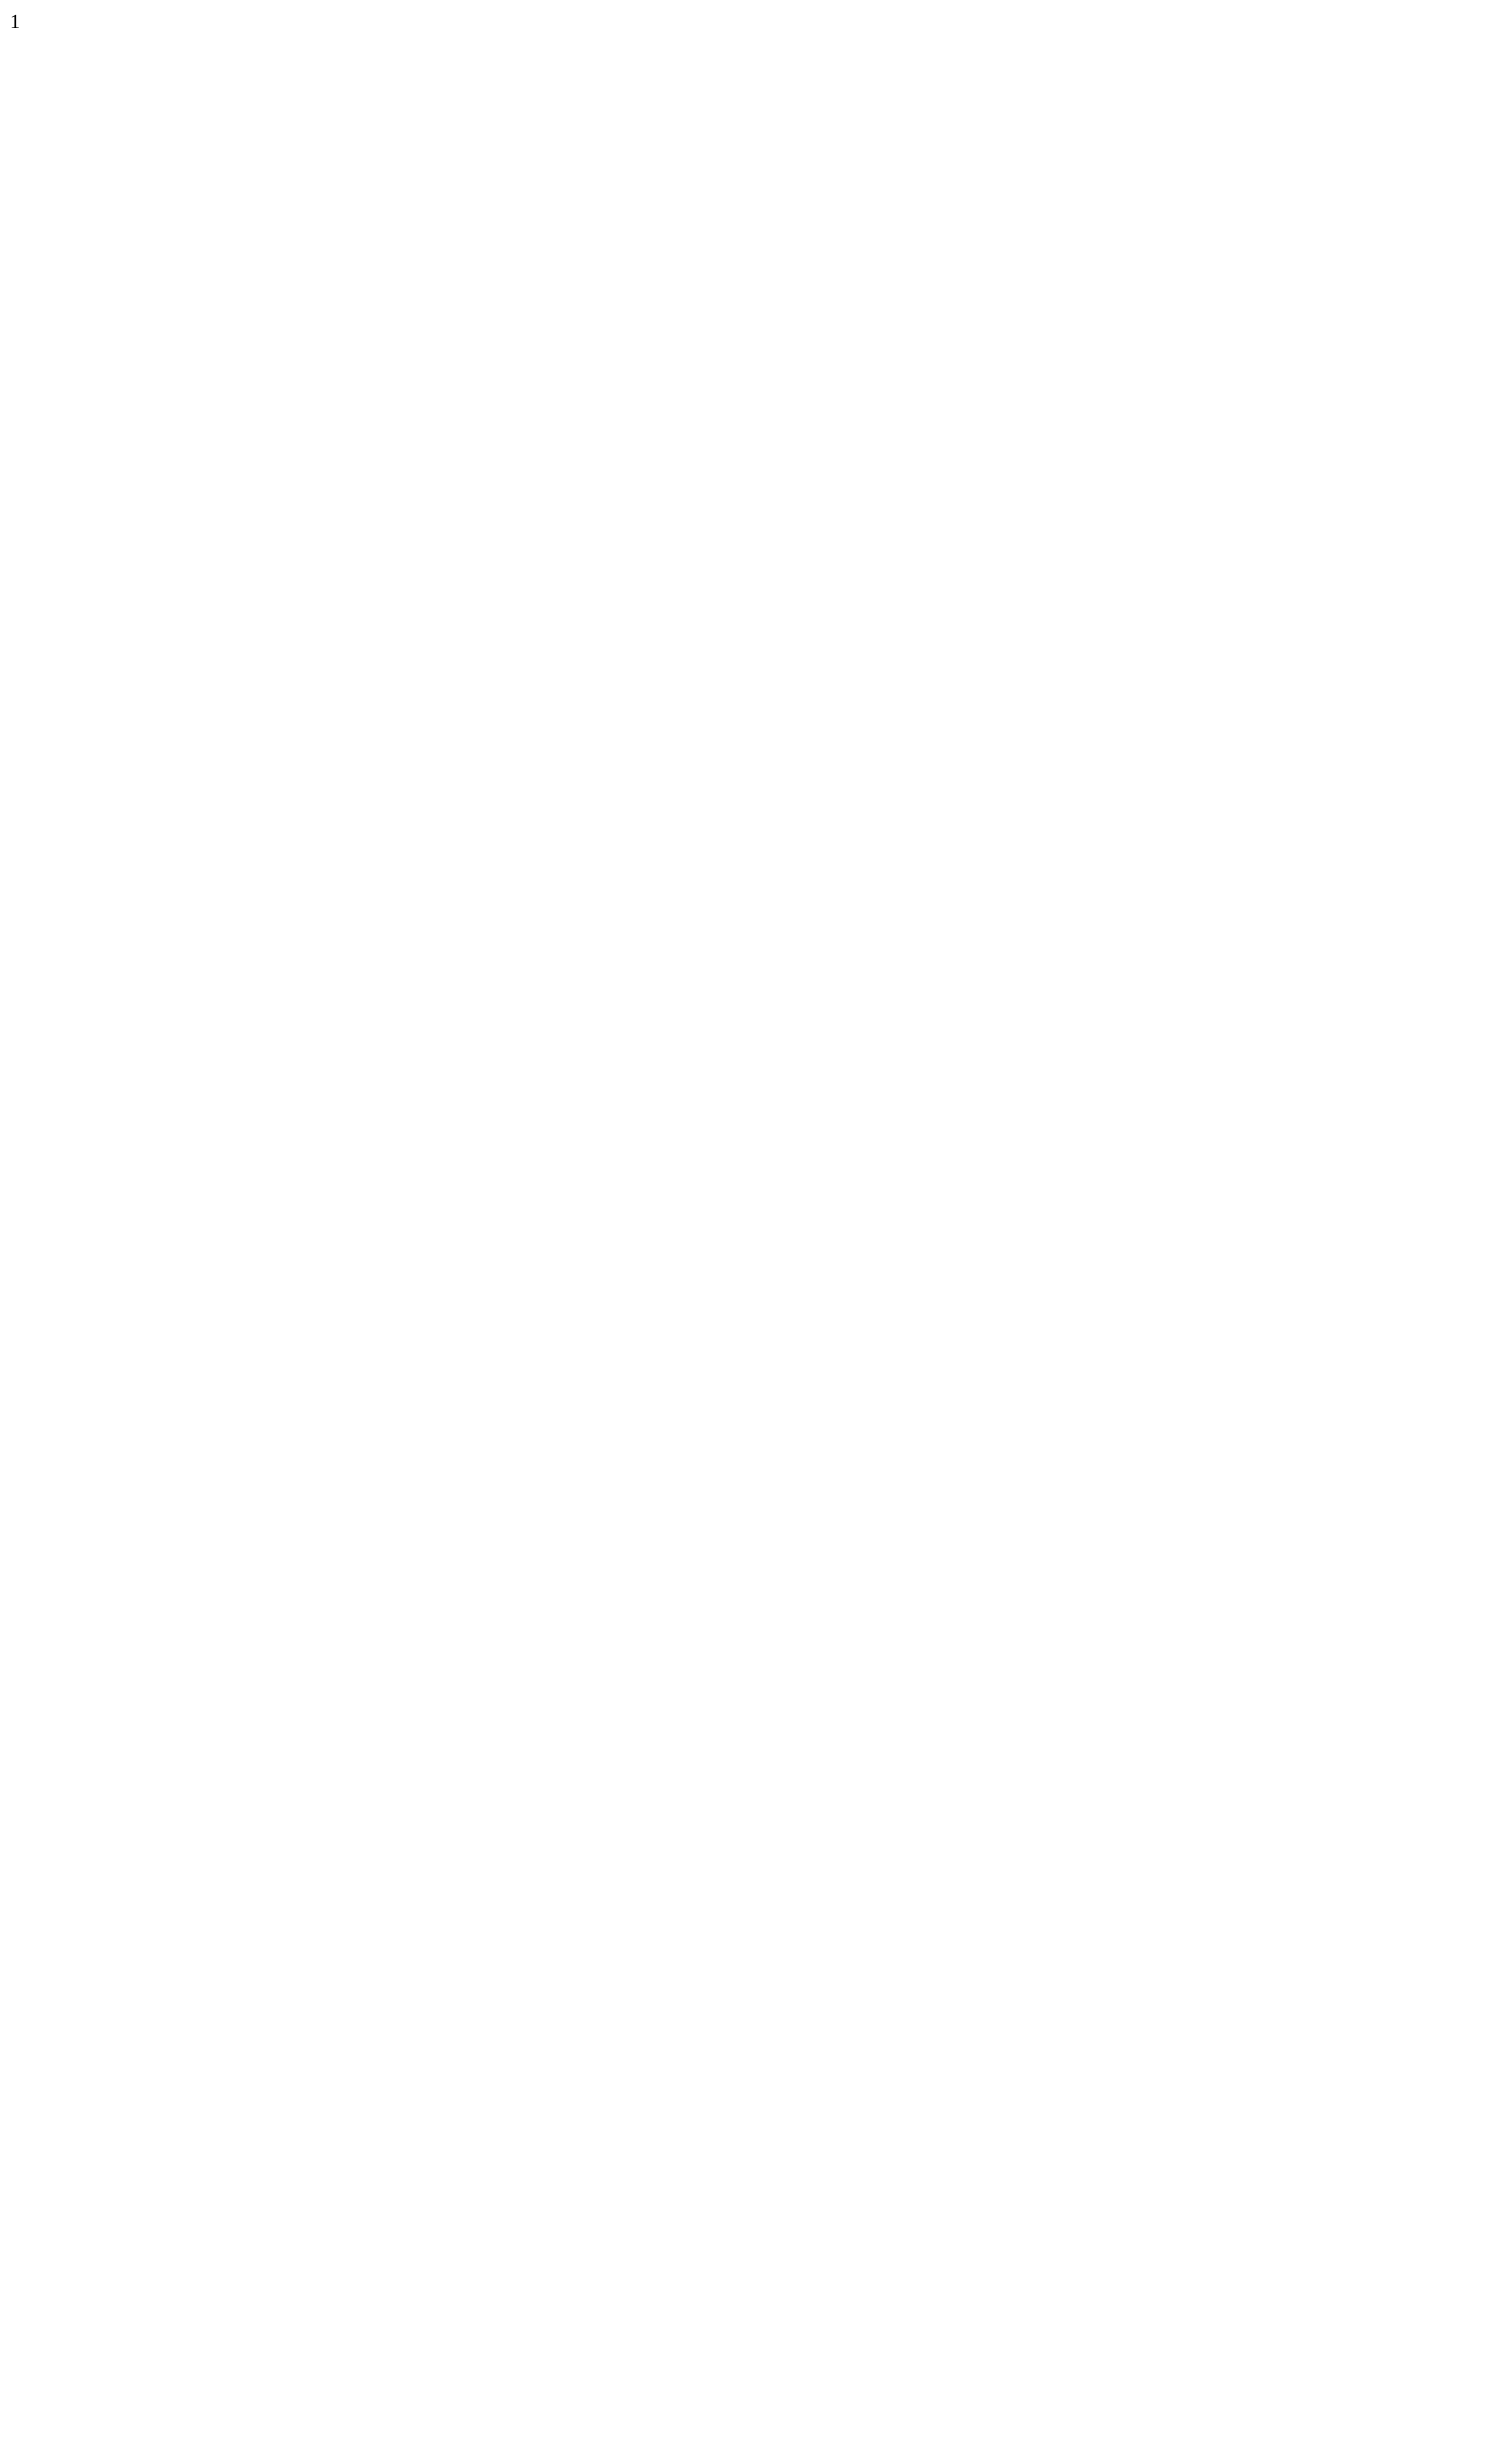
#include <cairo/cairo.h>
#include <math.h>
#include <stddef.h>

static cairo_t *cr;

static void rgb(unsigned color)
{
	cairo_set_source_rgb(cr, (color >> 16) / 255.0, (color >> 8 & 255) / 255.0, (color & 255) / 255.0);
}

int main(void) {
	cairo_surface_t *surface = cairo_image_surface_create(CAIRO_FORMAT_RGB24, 1492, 2447);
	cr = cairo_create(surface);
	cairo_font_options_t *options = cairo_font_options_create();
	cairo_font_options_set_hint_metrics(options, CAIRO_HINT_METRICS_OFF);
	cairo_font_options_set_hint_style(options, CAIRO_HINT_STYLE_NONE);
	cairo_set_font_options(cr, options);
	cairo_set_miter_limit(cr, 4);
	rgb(0xffffff);
	cairo_paint(cr);
	cairo_select_font_face(cr, "Liberation Serif", CAIRO_FONT_SLANT_NORMAL, CAIRO_FONT_WEIGHT_NORMAL);
	cairo_set_font_size(cr, 20);
	rgb(0x000000);
	cairo_move_to(cr, 10, 28);
	cairo_show_text(cr, "1");
	cairo_surface_write_to_png(surface, "page.png");
	cairo_font_options_destroy(options);
	cairo_destroy(cr);
	cairo_surface_destroy(surface);
	return 0;
}
